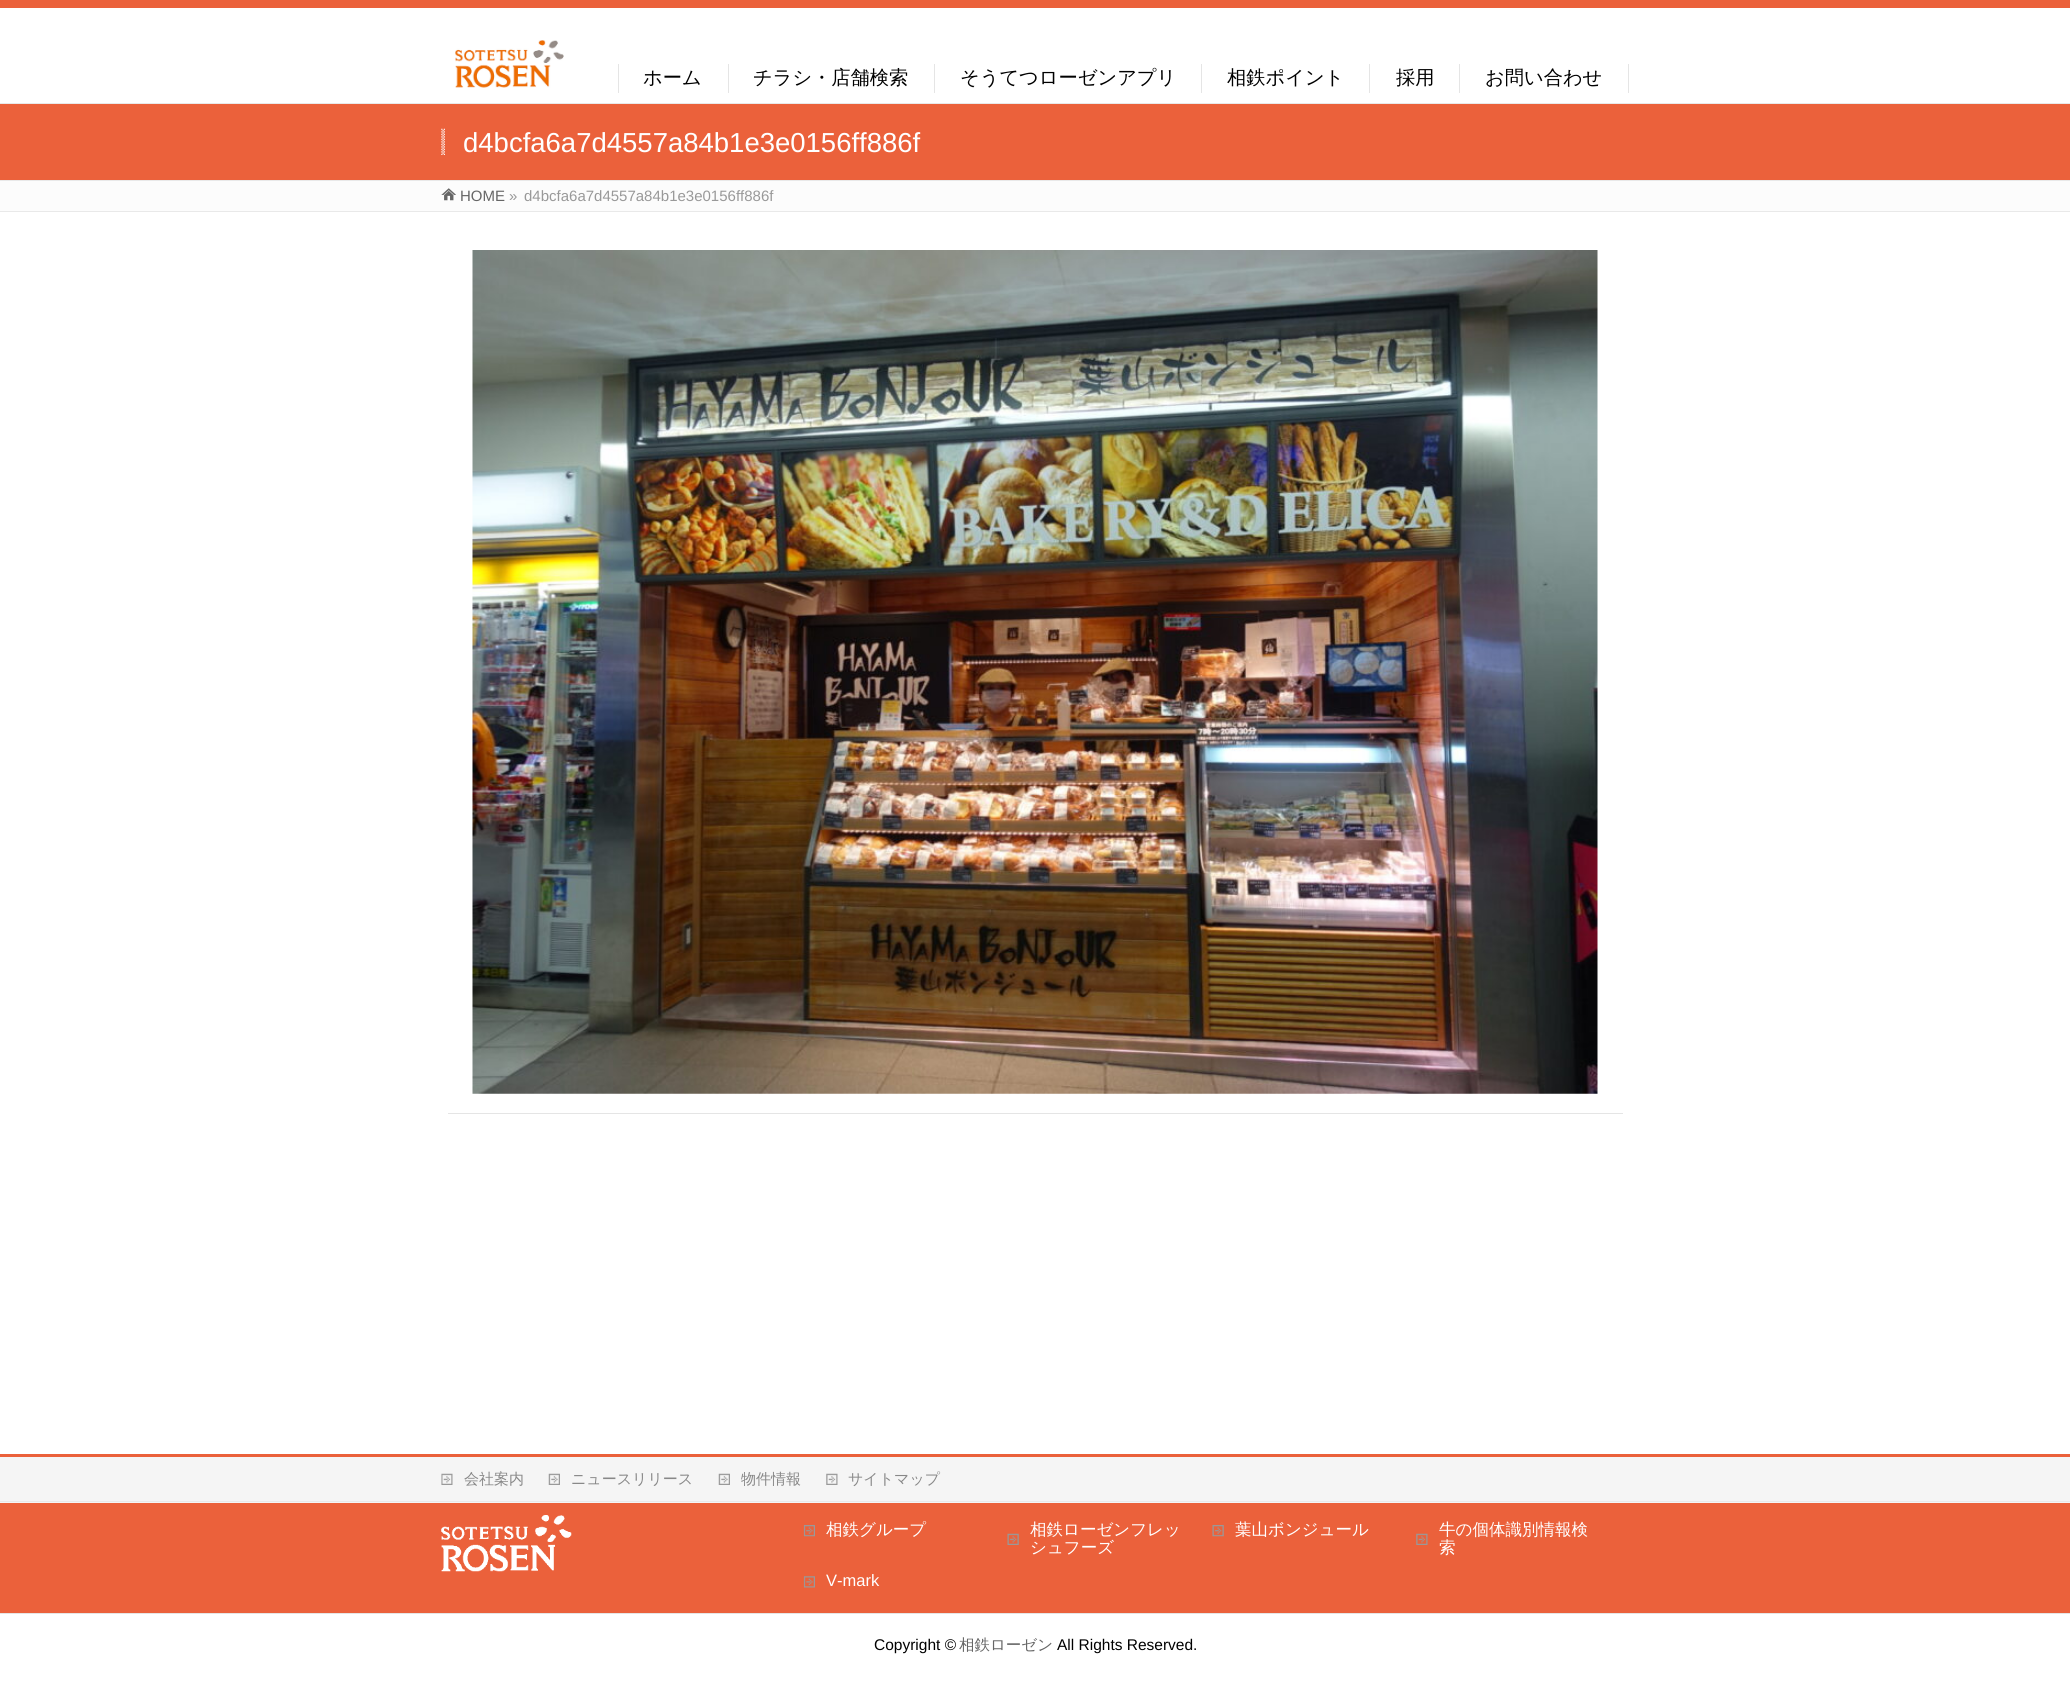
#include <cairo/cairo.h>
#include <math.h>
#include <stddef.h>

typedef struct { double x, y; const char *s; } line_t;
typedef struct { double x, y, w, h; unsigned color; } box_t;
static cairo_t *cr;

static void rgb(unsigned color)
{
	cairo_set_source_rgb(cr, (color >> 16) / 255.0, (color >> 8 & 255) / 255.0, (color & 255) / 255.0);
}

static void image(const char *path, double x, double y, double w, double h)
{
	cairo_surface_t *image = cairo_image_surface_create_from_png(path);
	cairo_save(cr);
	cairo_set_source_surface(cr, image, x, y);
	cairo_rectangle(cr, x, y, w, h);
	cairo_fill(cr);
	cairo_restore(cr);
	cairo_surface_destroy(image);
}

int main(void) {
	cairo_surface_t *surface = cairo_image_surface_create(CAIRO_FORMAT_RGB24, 2070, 1697);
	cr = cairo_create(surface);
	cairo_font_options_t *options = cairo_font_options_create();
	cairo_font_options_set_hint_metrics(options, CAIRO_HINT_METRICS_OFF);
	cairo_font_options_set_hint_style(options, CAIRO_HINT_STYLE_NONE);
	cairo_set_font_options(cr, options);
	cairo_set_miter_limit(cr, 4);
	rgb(0xffffff);
	cairo_paint(cr);
	rgb(0xeb613b);
	cairo_rectangle(cr, 0, 0, 2070, 8);
	cairo_fill(cr);
	image("img/1.png", 455, 40, 109, 48);
	{
		static const box_t items[] = {
			{728, 64, 1, 29, 0xe5e5e5},
			{618, 64, 1, 29, 0xe5e5e5},
			{934, 64, 1, 29, 0xe5e5e5},
			{1201, 64, 1, 29, 0xe5e5e5},
			{1369, 64, 1, 29, 0xe5e5e5},
			{1459, 64, 1, 29, 0xe5e5e5},
			{1628, 64, 1, 29, 0xe5e5e5},
			{0, 104, 2070, 76, 0xeb613b},
			{0, 103, 2070, 1, 0xe9e9e9},
			{0, 180, 2070, 1, 0xe9e9e9},
		};
		for (size_t i = 0; i < sizeof items / sizeof *items; i++) {
			rgb(items[i].color);
			cairo_rectangle(cr, items[i].x, items[i].y, items[i].w, items[i].h);
			cairo_fill(cr);
		}
	}
	image("img/2.png", 441, 128, 4, 27);
	rgb(0xfcfcfc);
	cairo_rectangle(cr, 0, 181, 2070, 30);
	cairo_fill(cr);
	image("img/3.png", 441, 188, 15, 13);
	rgb(0xe9e9e9);
	cairo_rectangle(cr, 0, 211, 2070, 1);
	cairo_fill(cr);
	image("img/4.png", 472, 250, 1126, 844);
	{
		static const box_t items[] = {
			{448, 1113, 1175, 1, 0xe5e5e5},
			{0, 1457, 2070, 46, 0xf5f5f5},
			{0, 1454, 2070, 3, 0xeb613b},
			{0, 1501, 2070, 1, 0xe9e9e9},
		};
		for (size_t i = 0; i < sizeof items / sizeof *items; i++) {
			rgb(items[i].color);
			cairo_rectangle(cr, items[i].x, items[i].y, items[i].w, items[i].h);
			cairo_fill(cr);
		}
	}
	image("img/5.png", 441, 1473, 12, 12);
	image("img/6.png", 548, 1473, 12, 12);
	image("img/6.png", 718, 1473, 12, 12);
	image("img/7.png", 826, 1473, 12, 12);
	rgb(0xeb613b);
	cairo_rectangle(cr, 0, 1503, 2070, 110);
	cairo_fill(cr);
	image("img/8.png", 441, 1515, 131, 57);
	image("img/9.png", 803, 1525, 12, 12);
	image("img/10.png", 1007, 1533, 12, 12);
	image("img/11.png", 1212, 1525, 12, 12);
	image("img/12.png", 1416, 1533, 12, 12);
	image("img/13.png", 803, 1576, 12, 12);
	rgb(0xe5e5e5);
	cairo_rectangle(cr, 0, 1613, 2070, 1);
	cairo_fill(cr);
	cairo_select_font_face(cr, "WenQuanYi Zen Hei Medium", CAIRO_FONT_SLANT_NORMAL, CAIRO_FONT_WEIGHT_NORMAL);
	cairo_set_font_size(cr, 19.25);
	rgb(0x000000);
	{
		static const line_t items[] = {
			{643, 84, "ホーム"},
			{753, 84, "チラシ・店舗検索"},
			{960, 84, "そうてつローゼンアプリ"},
			{1227, 84, "相鉄ポイント"},
			{1396, 84, "採用"},
			{1485, 84, "お問い合わせ"},
		};
		for (size_t i = 0; i < sizeof items / sizeof *items; i++) {
			cairo_move_to(cr, items[i].x, items[i].y);
			cairo_show_text(cr, items[i].s);
		}
	}
	cairo_select_font_face(cr, "Liberation Sans", CAIRO_FONT_SLANT_NORMAL, CAIRO_FONT_WEIGHT_NORMAL);
	cairo_set_font_size(cr, 27.5);
	rgb(0xffffff);
	cairo_move_to(cr, 463, 152);
	cairo_show_text(cr, "d4bcfa6a7d4557a84b1e3e0156ff886f");
	cairo_set_font_size(cr, 15);
	rgb(0x666666);
	cairo_move_to(cr, 460, 201);
	cairo_show_text(cr, "HOME");
	rgb(0x999999);
	cairo_move_to(cr, 509, 201);
	cairo_show_text(cr, "»");
	cairo_move_to(cr, 524, 201);
	cairo_show_text(cr, "d4bcfa6a7d4557a84b1e3e0156ff886f");
	cairo_select_font_face(cr, "WenQuanYi Zen Hei Medium", CAIRO_FONT_SLANT_NORMAL, CAIRO_FONT_WEIGHT_NORMAL);
	rgb(0x888888);
	{
		static const line_t items[] = {
			{464, 1484, "会社案内"},
			{571, 1484, "ニュースリリース"},
			{741, 1484, "物件情報"},
			{848, 1484, "サイトマップ"},
		};
		for (size_t i = 0; i < sizeof items / sizeof *items; i++) {
			cairo_move_to(cr, items[i].x, items[i].y);
			cairo_show_text(cr, items[i].s);
		}
	}
	cairo_set_font_size(cr, 16.5);
	rgb(0xffffff);
	{
		static const line_t items[] = {
			{826, 1535, "相鉄グループ"},
			{1030, 1535, "相鉄ローゼンフレッ"},
			{1030, 1553, "シュフーズ"},
			{1235, 1535, "葉山ボンジュール"},
			{1439, 1535, "牛の個体識別情報検"},
			{1439, 1553, "索"},
		};
		for (size_t i = 0; i < sizeof items / sizeof *items; i++) {
			cairo_move_to(cr, items[i].x, items[i].y);
			cairo_show_text(cr, items[i].s);
		}
	}
	cairo_select_font_face(cr, "Liberation Sans", CAIRO_FONT_SLANT_NORMAL, CAIRO_FONT_WEIGHT_NORMAL);
	cairo_move_to(cr, 826, 1586);
	cairo_show_text(cr, "V-mark");
	cairo_set_font_size(cr, 15.5);
	rgb(0x000000);
	cairo_move_to(cr, 874, 1650);
	cairo_show_text(cr, "Copyright ©");
	cairo_select_font_face(cr, "WenQuanYi Zen Hei Medium", CAIRO_FONT_SLANT_NORMAL, CAIRO_FONT_WEIGHT_NORMAL);
	rgb(0x666666);
	cairo_move_to(cr, 959, 1650);
	cairo_show_text(cr, "相鉄ローゼン");
	cairo_select_font_face(cr, "Liberation Sans", CAIRO_FONT_SLANT_NORMAL, CAIRO_FONT_WEIGHT_NORMAL);
	rgb(0x000000);
	cairo_move_to(cr, 1057, 1650);
	cairo_show_text(cr, "All Rights Reserved.");
	cairo_surface_write_to_png(surface, "page.png");
	cairo_font_options_destroy(options);
	cairo_destroy(cr);
	cairo_surface_destroy(surface);
	return 0;
}
